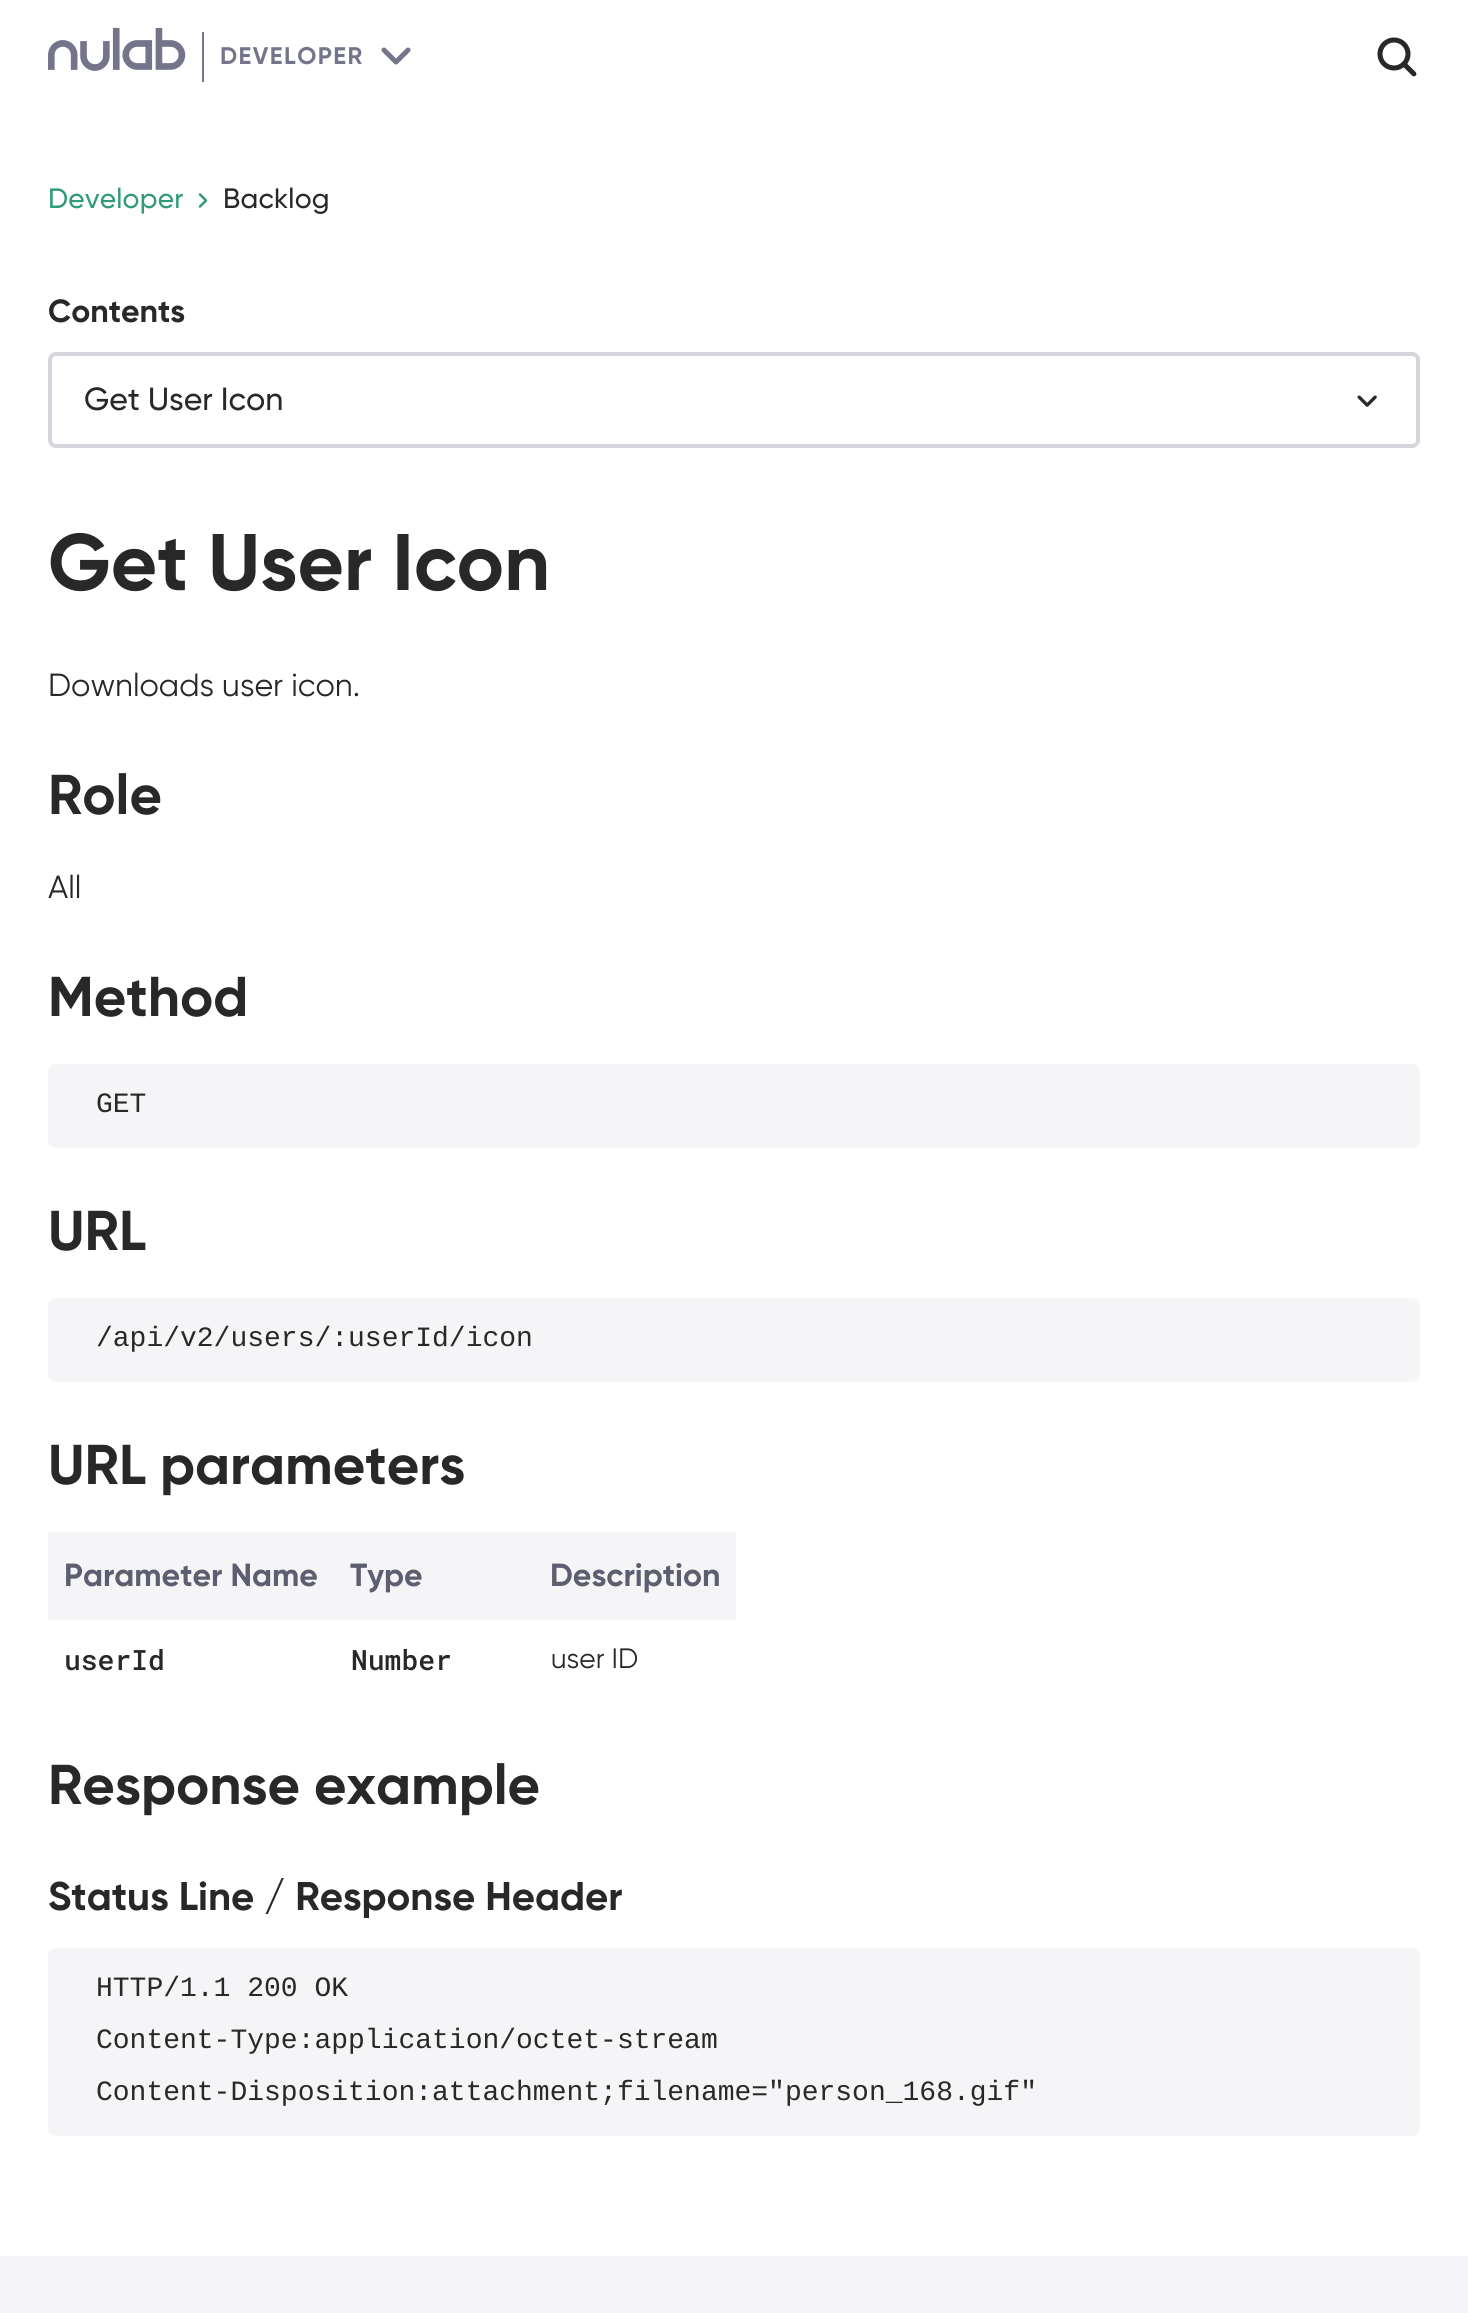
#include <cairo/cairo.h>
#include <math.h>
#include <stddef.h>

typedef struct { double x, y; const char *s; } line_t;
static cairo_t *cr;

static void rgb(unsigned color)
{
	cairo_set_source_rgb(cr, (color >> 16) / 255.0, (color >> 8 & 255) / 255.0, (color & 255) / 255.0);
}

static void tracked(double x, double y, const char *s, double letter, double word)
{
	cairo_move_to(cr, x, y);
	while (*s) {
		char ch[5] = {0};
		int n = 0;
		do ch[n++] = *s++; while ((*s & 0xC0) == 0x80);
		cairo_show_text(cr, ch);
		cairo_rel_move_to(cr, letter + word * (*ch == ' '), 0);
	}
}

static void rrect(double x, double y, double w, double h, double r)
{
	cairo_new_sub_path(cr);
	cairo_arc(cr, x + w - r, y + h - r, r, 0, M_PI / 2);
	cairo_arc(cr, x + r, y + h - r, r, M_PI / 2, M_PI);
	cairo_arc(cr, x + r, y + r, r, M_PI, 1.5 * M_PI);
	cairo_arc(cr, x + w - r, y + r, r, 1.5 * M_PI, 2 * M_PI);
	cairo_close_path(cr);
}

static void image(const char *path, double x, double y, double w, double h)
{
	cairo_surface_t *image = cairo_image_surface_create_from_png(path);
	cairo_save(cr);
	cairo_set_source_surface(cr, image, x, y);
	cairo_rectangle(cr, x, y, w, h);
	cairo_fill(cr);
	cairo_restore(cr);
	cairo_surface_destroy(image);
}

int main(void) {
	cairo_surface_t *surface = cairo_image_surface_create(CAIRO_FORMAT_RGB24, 1468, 2313);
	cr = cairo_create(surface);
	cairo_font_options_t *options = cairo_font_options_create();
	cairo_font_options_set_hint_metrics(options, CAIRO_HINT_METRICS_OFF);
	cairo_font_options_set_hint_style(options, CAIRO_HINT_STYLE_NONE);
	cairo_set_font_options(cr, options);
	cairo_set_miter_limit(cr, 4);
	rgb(0xffffff);
	cairo_paint(cr);
	image("img/1.png", 48, 27, 138, 44);
	rgb(0x74758b);
	cairo_rectangle(cr, 202, 32, 2, 50);
	cairo_fill(cr);
	image("img/2.png", 381, 47, 30, 18);
	image("img/3.png", 1377, 37, 40, 40);
	image("img/4.png", 198, 193, 10, 15);
	rrect(50, 354, 1368, 92, 6);
	rgb(0xd5d6dc);
	cairo_set_line_width(cr, 4);
	cairo_stroke(cr);
	image("img/5.png", 1357, 395, 20, 12);
	rgb(0xf5f5f7);
	rrect(48, 1064, 1372, 84, 8);
	cairo_fill(cr);
	rrect(48, 1298, 1372, 84, 8);
	cairo_fill(cr);
	cairo_rectangle(cr, 48, 1532, 688, 88);
	cairo_fill(cr);
	rrect(48, 1948, 1372, 188, 8);
	cairo_fill(cr);
	cairo_rectangle(cr, 0, 2256, 1468, 57);
	cairo_fill(cr);
	cairo_select_font_face(cr, "Gilroy", CAIRO_FONT_SLANT_NORMAL, CAIRO_FONT_WEIGHT_BOLD);
	cairo_set_font_size(cr, 24);
	rgb(0x74758b);
	tracked(220, 64, "DEVELOPER", 1.5, 0);
	cairo_select_font_face(cr, "Gilroy Medium", CAIRO_FONT_SLANT_NORMAL, CAIRO_FONT_WEIGHT_NORMAL);
	cairo_set_font_size(cr, 28);
	rgb(0x319b77);
	tracked(48, 208, "Developer", 0.25, 0);
	rgb(0x282828);
	tracked(223, 208, "Backlog", 0.25, 0);
	cairo_select_font_face(cr, "Gilroy", CAIRO_FONT_SLANT_NORMAL, CAIRO_FONT_WEIGHT_BOLD);
	cairo_set_font_size(cr, 32);
	cairo_move_to(cr, 48, 322);
	cairo_show_text(cr, "Contents");
	cairo_select_font_face(cr, "Gilroy Medium", CAIRO_FONT_SLANT_NORMAL, CAIRO_FONT_WEIGHT_NORMAL);
	cairo_move_to(cr, 84, 410);
	cairo_show_text(cr, "Get User Icon");
	cairo_select_font_face(cr, "Gilroy", CAIRO_FONT_SLANT_NORMAL, CAIRO_FONT_WEIGHT_BOLD);
	cairo_set_font_size(cr, 80);
	cairo_move_to(cr, 48, 590);
	cairo_show_text(cr, "Get User Icon");
	cairo_select_font_face(cr, "Gilroy", CAIRO_FONT_SLANT_NORMAL, CAIRO_FONT_WEIGHT_NORMAL);
	cairo_set_font_size(cr, 32);
	cairo_move_to(cr, 48, 696);
	cairo_show_text(cr, "Downloads user icon.");
	cairo_select_font_face(cr, "Gilroy", CAIRO_FONT_SLANT_NORMAL, CAIRO_FONT_WEIGHT_BOLD);
	cairo_set_font_size(cr, 56);
	cairo_move_to(cr, 48, 814);
	cairo_show_text(cr, "Role");
	cairo_select_font_face(cr, "Gilroy", CAIRO_FONT_SLANT_NORMAL, CAIRO_FONT_WEIGHT_NORMAL);
	cairo_set_font_size(cr, 32);
	cairo_move_to(cr, 48, 898);
	cairo_show_text(cr, "All");
	cairo_select_font_face(cr, "Gilroy", CAIRO_FONT_SLANT_NORMAL, CAIRO_FONT_WEIGHT_BOLD);
	cairo_set_font_size(cr, 56);
	cairo_move_to(cr, 48, 1016);
	cairo_show_text(cr, "Method");
	cairo_select_font_face(cr, "Liberation Mono", CAIRO_FONT_SLANT_NORMAL, CAIRO_FONT_WEIGHT_NORMAL);
	cairo_set_font_size(cr, 28);
	cairo_move_to(cr, 96, 1112);
	cairo_show_text(cr, "GET");
	cairo_select_font_face(cr, "Gilroy", CAIRO_FONT_SLANT_NORMAL, CAIRO_FONT_WEIGHT_BOLD);
	cairo_set_font_size(cr, 56);
	cairo_move_to(cr, 48, 1250);
	cairo_show_text(cr, "URL");
	cairo_select_font_face(cr, "Liberation Mono", CAIRO_FONT_SLANT_NORMAL, CAIRO_FONT_WEIGHT_NORMAL);
	cairo_set_font_size(cr, 28);
	cairo_move_to(cr, 96, 1346);
	cairo_show_text(cr, "/api/v2/users/:userId/icon");
	cairo_select_font_face(cr, "Gilroy", CAIRO_FONT_SLANT_NORMAL, CAIRO_FONT_WEIGHT_BOLD);
	cairo_set_font_size(cr, 56);
	cairo_move_to(cr, 48, 1484);
	cairo_show_text(cr, "URL parameters");
	cairo_set_font_size(cr, 32);
	rgb(0x5d5e6f);
	{
		static const line_t items[] = {
			{64, 1586, "Parameter Name"},
			{350, 1586, "Type"},
			{550, 1586, "Description"},
		};
		for (size_t i = 0; i < sizeof items / sizeof *items; i++) {
			cairo_move_to(cr, items[i].x, items[i].y);
			cairo_show_text(cr, items[i].s);
		}
	}
	cairo_select_font_face(cr, "Roboto Mono Medium", CAIRO_FONT_SLANT_NORMAL, CAIRO_FONT_WEIGHT_NORMAL);
	cairo_set_font_size(cr, 28);
	rgb(0x282828);
	cairo_move_to(cr, 64, 1670);
	cairo_show_text(cr, "userId");
	cairo_move_to(cr, 351, 1670);
	cairo_show_text(cr, "Number");
	cairo_select_font_face(cr, "Gilroy", CAIRO_FONT_SLANT_NORMAL, CAIRO_FONT_WEIGHT_NORMAL);
	cairo_move_to(cr, 551, 1668);
	cairo_show_text(cr, "user ID");
	cairo_select_font_face(cr, "Gilroy", CAIRO_FONT_SLANT_NORMAL, CAIRO_FONT_WEIGHT_BOLD);
	cairo_set_font_size(cr, 56);
	cairo_move_to(cr, 48, 1804);
	cairo_show_text(cr, "Response example");
	cairo_set_font_size(cr, 40);
	cairo_move_to(cr, 48, 1910);
	cairo_show_text(cr, "Status Line / Response Header");
	cairo_select_font_face(cr, "Liberation Mono", CAIRO_FONT_SLANT_NORMAL, CAIRO_FONT_WEIGHT_NORMAL);
	cairo_set_font_size(cr, 28);
	{
		static const line_t items[] = {
			{96, 1996, "HTTP/1.1 200 OK"},
			{96, 2048, "Content-Type:application/octet-stream"},
			{96, 2100, "Content-Disposition:attachment;filename=\"person_168.gif\""},
		};
		for (size_t i = 0; i < sizeof items / sizeof *items; i++) {
			cairo_move_to(cr, items[i].x, items[i].y);
			cairo_show_text(cr, items[i].s);
		}
	}
	cairo_surface_write_to_png(surface, "page.png");
	cairo_font_options_destroy(options);
	cairo_destroy(cr);
	cairo_surface_destroy(surface);
	return 0;
}
